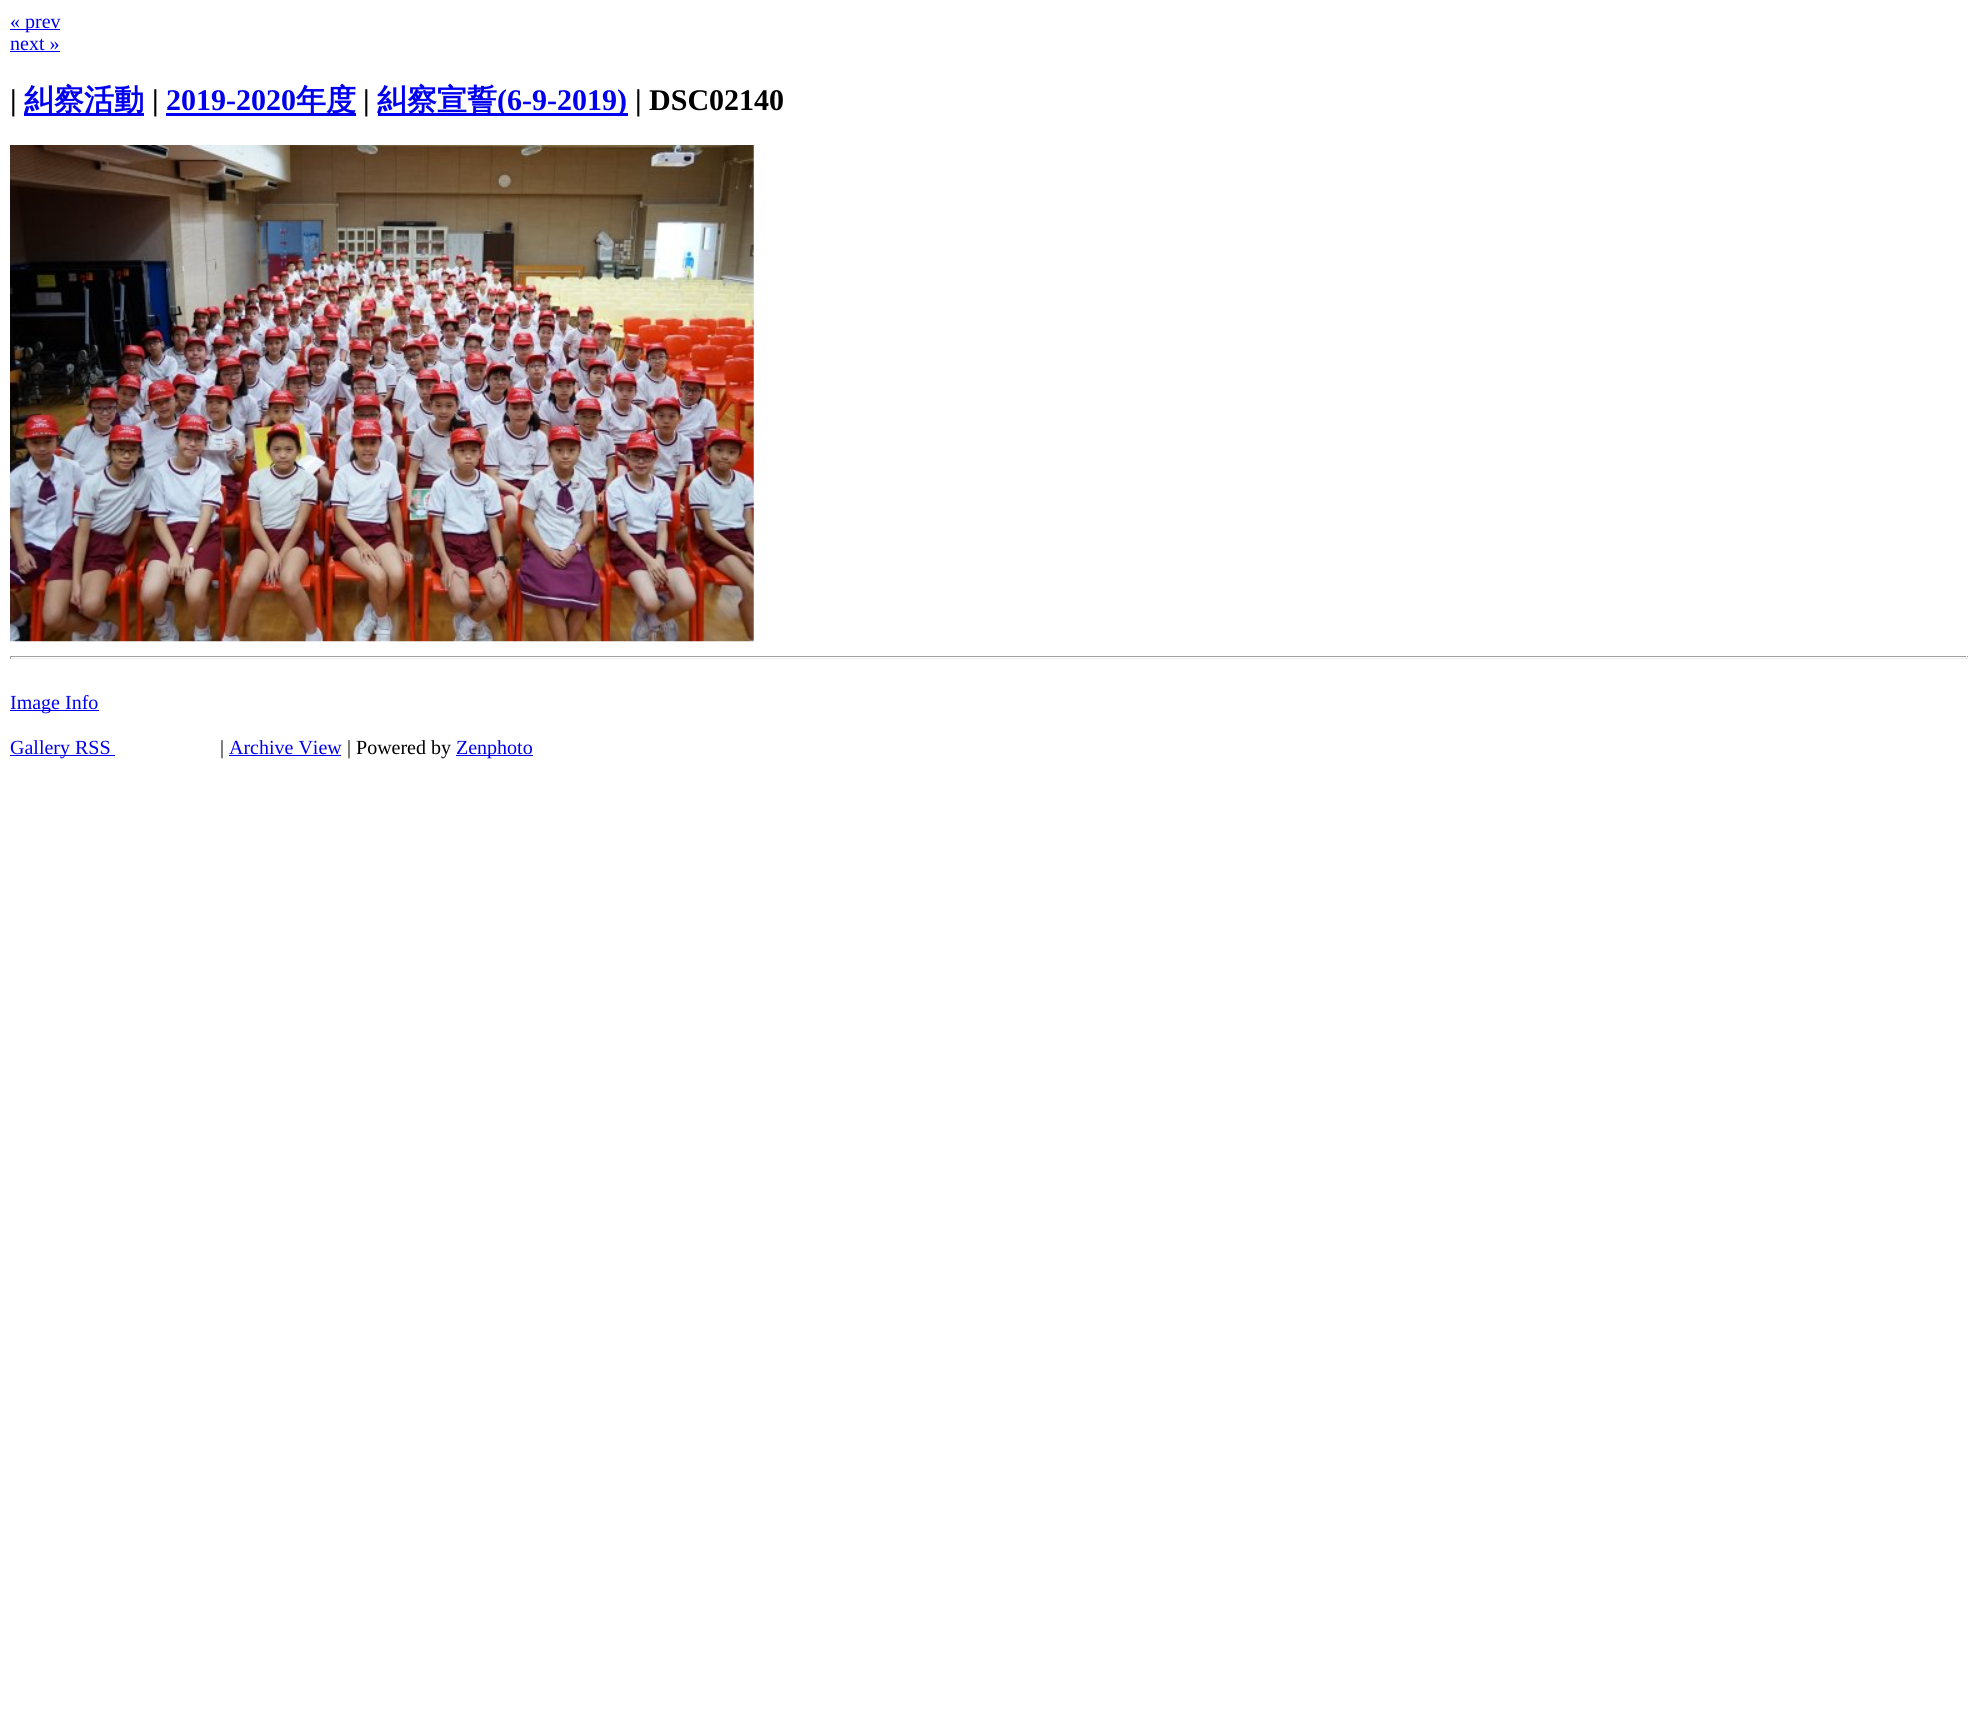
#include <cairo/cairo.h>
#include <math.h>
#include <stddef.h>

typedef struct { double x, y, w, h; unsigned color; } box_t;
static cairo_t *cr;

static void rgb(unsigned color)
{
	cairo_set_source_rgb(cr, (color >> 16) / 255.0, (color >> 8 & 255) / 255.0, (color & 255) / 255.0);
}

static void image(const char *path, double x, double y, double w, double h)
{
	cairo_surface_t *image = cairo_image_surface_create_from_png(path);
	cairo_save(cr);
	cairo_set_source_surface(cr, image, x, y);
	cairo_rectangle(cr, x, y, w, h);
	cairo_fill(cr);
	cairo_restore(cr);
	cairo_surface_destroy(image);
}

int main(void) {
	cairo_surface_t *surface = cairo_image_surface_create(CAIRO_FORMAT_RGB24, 1977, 1729);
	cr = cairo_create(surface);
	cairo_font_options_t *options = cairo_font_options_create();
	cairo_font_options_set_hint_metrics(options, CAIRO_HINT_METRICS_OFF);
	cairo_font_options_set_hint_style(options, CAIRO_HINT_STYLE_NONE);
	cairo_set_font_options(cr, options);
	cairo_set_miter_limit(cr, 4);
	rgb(0xffffff);
	cairo_paint(cr);
	{
		static const box_t items[] = {
			{10, 29, 50, 1, 0x0000ee},
			{10, 51, 50, 1, 0x0000ee},
			{24, 113, 120, 3, 0x0000ee},
			{166, 113, 190, 3, 0x0000ee},
			{378, 113, 250, 3, 0x0000ee},
		};
		for (size_t i = 0; i < sizeof items / sizeof *items; i++) {
			rgb(items[i].color);
			cairo_rectangle(cr, items[i].x, items[i].y, items[i].w, items[i].h);
			cairo_fill(cr);
		}
	}
	image("img/1.png", 10, 145, 744, 497);
	{
		static const box_t items[] = {
			{10, 656, 1958, 1, 0x9f9f9f},
			{1966, 656, 1, 3, 0xeeeeee},
			{10, 658, 1958, 1, 0xeeeeee},
			{10, 656, 1, 3, 0x9f9f9f},
			{10, 710, 89, 1, 0x0000ee},
			{10, 755, 105, 1, 0x0000ee},
			{229, 755, 112, 1, 0x0000ee},
			{456, 755, 77, 1, 0x0000ee},
		};
		for (size_t i = 0; i < sizeof items / sizeof *items; i++) {
			rgb(items[i].color);
			cairo_rectangle(cr, items[i].x, items[i].y, items[i].w, items[i].h);
			cairo_fill(cr);
		}
	}
	cairo_select_font_face(cr, "Liberation Serif", CAIRO_FONT_SLANT_NORMAL, CAIRO_FONT_WEIGHT_NORMAL);
	cairo_set_font_size(cr, 20);
	cairo_move_to(cr, 10, 28);
	cairo_show_text(cr, "« prev");
	cairo_move_to(cr, 10, 50);
	cairo_show_text(cr, "next »");
	cairo_select_font_face(cr, "Liberation Serif", CAIRO_FONT_SLANT_NORMAL, CAIRO_FONT_WEIGHT_BOLD);
	cairo_set_font_size(cr, 30);
	rgb(0x000000);
	cairo_move_to(cr, 10, 110);
	cairo_show_text(cr, "|");
	cairo_select_font_face(cr, "WenQuanYi Zen Hei", CAIRO_FONT_SLANT_NORMAL, CAIRO_FONT_WEIGHT_BOLD);
	rgb(0x0000ee);
	cairo_move_to(cr, 24, 110);
	cairo_show_text(cr, "糾察活動");
	cairo_select_font_face(cr, "Liberation Serif", CAIRO_FONT_SLANT_NORMAL, CAIRO_FONT_WEIGHT_BOLD);
	rgb(0x000000);
	cairo_move_to(cr, 152, 110);
	cairo_show_text(cr, "|");
	rgb(0x0000ee);
	cairo_move_to(cr, 166, 110);
	cairo_show_text(cr, "2019-2020");
	cairo_select_font_face(cr, "WenQuanYi Zen Hei", CAIRO_FONT_SLANT_NORMAL, CAIRO_FONT_WEIGHT_BOLD);
	cairo_move_to(cr, 296, 110);
	cairo_show_text(cr, "年度");
	cairo_select_font_face(cr, "Liberation Serif", CAIRO_FONT_SLANT_NORMAL, CAIRO_FONT_WEIGHT_BOLD);
	rgb(0x000000);
	cairo_move_to(cr, 363, 110);
	cairo_show_text(cr, "|");
	cairo_select_font_face(cr, "WenQuanYi Zen Hei", CAIRO_FONT_SLANT_NORMAL, CAIRO_FONT_WEIGHT_BOLD);
	rgb(0x0000ee);
	cairo_move_to(cr, 377, 110);
	cairo_show_text(cr, "糾察宣誓");
	cairo_select_font_face(cr, "Liberation Serif", CAIRO_FONT_SLANT_NORMAL, CAIRO_FONT_WEIGHT_BOLD);
	cairo_move_to(cr, 497, 110);
	cairo_show_text(cr, "(6-9-2019)");
	rgb(0x000000);
	cairo_move_to(cr, 635, 110);
	cairo_show_text(cr, "| DSC02140");
	cairo_select_font_face(cr, "Liberation Serif", CAIRO_FONT_SLANT_NORMAL, CAIRO_FONT_WEIGHT_NORMAL);
	cairo_set_font_size(cr, 20);
	rgb(0x0000ee);
	cairo_move_to(cr, 10, 709);
	cairo_show_text(cr, "Image Info");
	cairo_move_to(cr, 10, 754);
	cairo_show_text(cr, "Gallery RSS");
	rgb(0x000000);
	cairo_move_to(cr, 220, 754);
	cairo_show_text(cr, "|");
	rgb(0x0000ee);
	cairo_move_to(cr, 229, 754);
	cairo_show_text(cr, "Archive View");
	rgb(0x000000);
	cairo_move_to(cr, 347, 754);
	cairo_show_text(cr, "| Powered by");
	rgb(0x0000ee);
	cairo_move_to(cr, 456, 754);
	cairo_show_text(cr, "Zenphoto");
	cairo_surface_write_to_png(surface, "page.png");
	cairo_font_options_destroy(options);
	cairo_destroy(cr);
	cairo_surface_destroy(surface);
	return 0;
}
